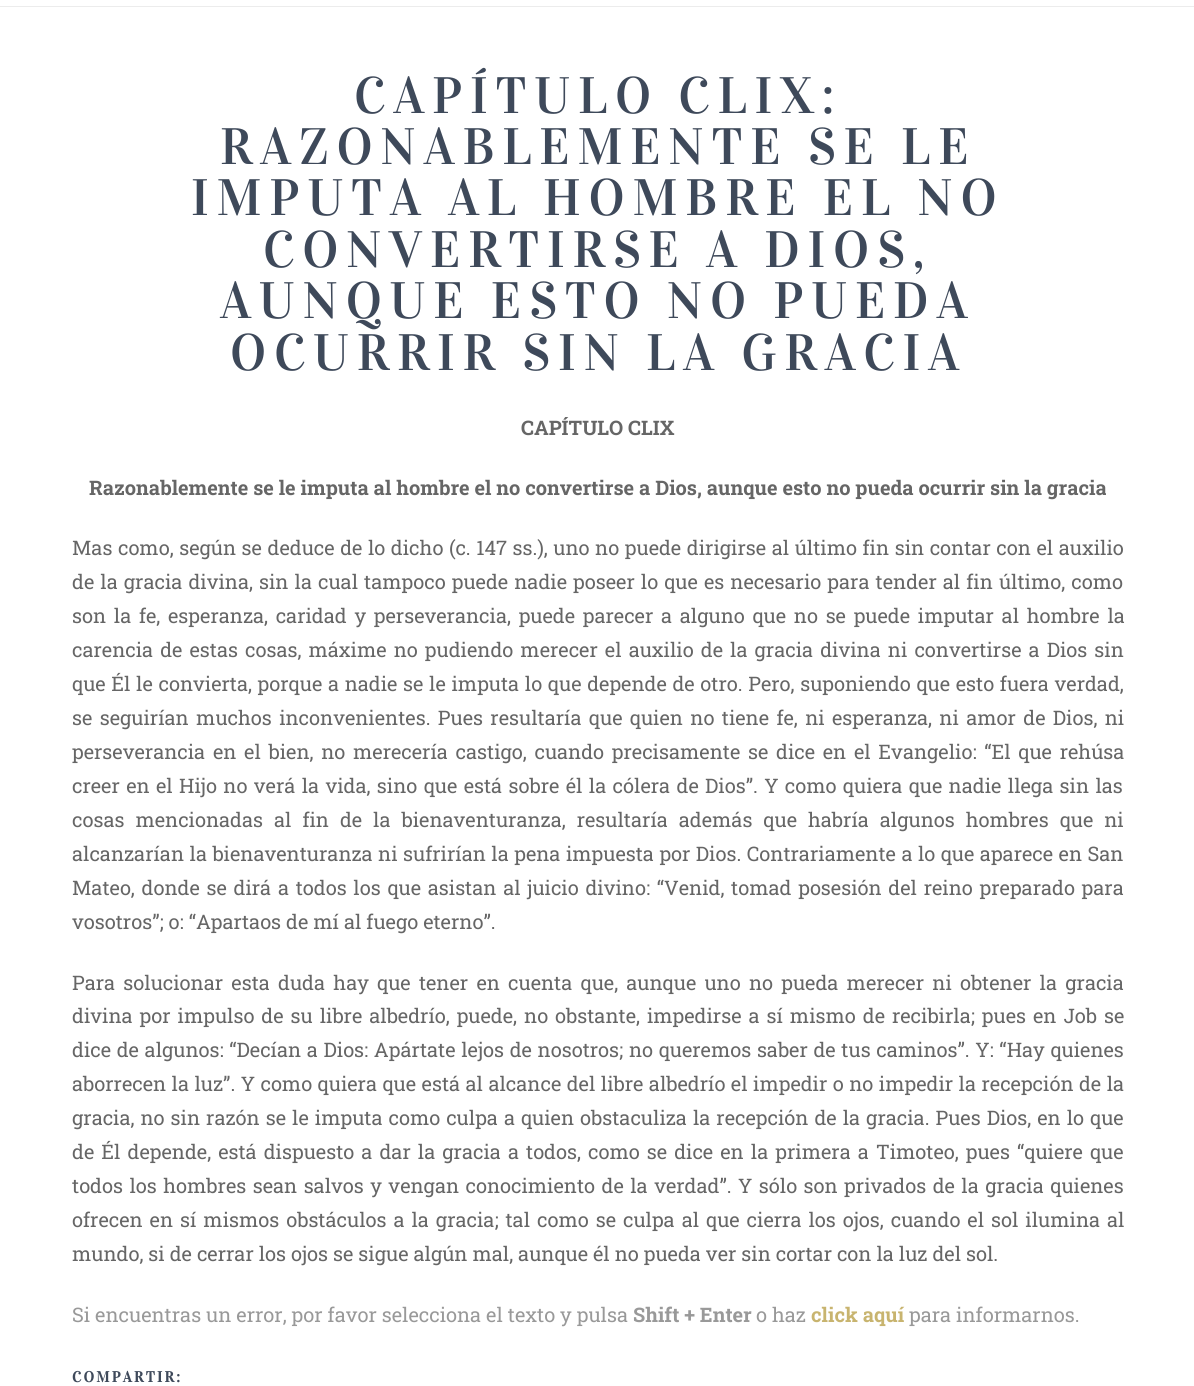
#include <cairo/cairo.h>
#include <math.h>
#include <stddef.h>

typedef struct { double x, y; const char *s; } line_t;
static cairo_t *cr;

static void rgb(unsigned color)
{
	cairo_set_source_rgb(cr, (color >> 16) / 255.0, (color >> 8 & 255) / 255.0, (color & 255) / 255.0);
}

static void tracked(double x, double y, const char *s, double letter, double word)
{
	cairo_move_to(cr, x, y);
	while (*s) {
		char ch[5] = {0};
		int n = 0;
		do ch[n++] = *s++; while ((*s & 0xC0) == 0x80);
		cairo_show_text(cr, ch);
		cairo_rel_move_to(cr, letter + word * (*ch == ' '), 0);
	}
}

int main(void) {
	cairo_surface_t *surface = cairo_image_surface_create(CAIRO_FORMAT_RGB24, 1194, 1386);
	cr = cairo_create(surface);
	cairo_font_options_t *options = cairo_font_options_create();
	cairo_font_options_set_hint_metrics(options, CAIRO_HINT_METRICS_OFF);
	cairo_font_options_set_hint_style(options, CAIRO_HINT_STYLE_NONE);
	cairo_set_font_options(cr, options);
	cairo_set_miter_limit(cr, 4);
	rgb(0xffffff);
	cairo_paint(cr);
	rgb(0xececec);
	cairo_rectangle(cr, 0, 6, 1194, 1);
	cairo_fill(cr);
	cairo_select_font_face(cr, "Vidaloka", CAIRO_FONT_SLANT_NORMAL, CAIRO_FONT_WEIGHT_NORMAL);
	cairo_set_font_size(cr, 51.4);
	rgb(0x3e495a);
	{
		static const line_t items[] = {
			{354, 113, "CAPÍTULO CLIX:"},
			{220, 164, "RAZONABLEMENTE SE LE"},
			{191, 215, "IMPUTA AL HOMBRE EL NO"},
			{263, 267, "CONVERTIRSE A DIOS,"},
			{220, 318, "AUNQUE ESTO NO PUEDA"},
			{230, 370, "OCURRIR SIN LA GRACIA"},
		};
		for (size_t i = 0; i < sizeof items / sizeof *items; i++) {
			tracked(items[i].x, items[i].y, items[i].s, 7.75, 0);
		}
	}
	cairo_select_font_face(cr, "Roboto Slab", CAIRO_FONT_SLANT_NORMAL, CAIRO_FONT_WEIGHT_BOLD);
	cairo_set_font_size(cr, 20);
	rgb(0x666666);
	cairo_move_to(cr, 521, 435);
	cairo_show_text(cr, "CAPÍTULO CLIX");
	cairo_move_to(cr, 89, 495);
	cairo_show_text(cr, "Razonablemente se le imputa al hombre el no convertirse a Dios, aunque esto no pueda ocurrir sin la gracia");
	cairo_select_font_face(cr, "Roboto Slab", CAIRO_FONT_SLANT_NORMAL, CAIRO_FONT_WEIGHT_NORMAL);
	tracked(72, 555, "Mas como, según se deduce de lo dicho (c. 147 ss.), uno no puede dirigirse al último fin sin contar con el auxilio", 0, 0.6);
	tracked(72, 589, "de la gracia divina, sin la cual tampoco puede nadie poseer lo que es necesario para tender al fin último, como", 0, 1.1);
	tracked(72, 623, "son la fe, esperanza, caridad y perseverancia, puede parecer a alguno que no se puede imputar al hombre la", 0, 2.75);
	tracked(72, 657, "carencia de estas cosas, máxime no pudiendo merecer el auxilio de la gracia divina ni convertirse a Dios sin", 0, 2.1);
	tracked(72, 691, "que Él le convierta, porque a nadie se le imputa lo que depende de otro. Pero, suponiendo que esto fuera verdad,", 0, 0.7);
	tracked(72, 725, "se seguirían muchos inconvenientes. Pues resultaría que quien no tiene fe, ni esperanza, ni amor de Dios, ni", 0, 2.4);
	tracked(72, 759, "perseverancia en el bien, no merecería castigo, cuando precisamente se dice en el Evangelio: “El que rehúsa", 0, 2.75);
	tracked(72, 793, "creer en el Hijo no verá la vida, sino que está sobre él la cólera de Dios”. Y como quiera que nadie llega sin las", 0, 1.4);
	tracked(72, 827, "cosas mencionadas al fin de la bienaventuranza, resultaría además que habría algunos hombres que ni", 0, 6);
	tracked(72, 861, "alcanzarían la bienaventuranza ni sufrirían la pena impuesta por Dios. Contrariamente a lo que aparece en San", 0, 0.5);
	tracked(72, 895, "Mateo, donde se dirá a todos los que asistan al juicio divino: “Venid, tomad posesión del reino preparado para", 0, 1.75);
	cairo_move_to(cr, 72, 929);
	cairo_show_text(cr, "vosotros”; o: “Apartaos de mí al fuego eterno”.");
	tracked(72, 990, "Para solucionar esta duda hay que tener en cuenta que, aunque uno no pueda merecer ni obtener la gracia", 0, 3.25);
	tracked(72, 1023, "divina por impulso de su libre albedrío, puede, no obstante, impedirse a sí mismo de recibirla; pues en Job se", 0, 2);
	tracked(72, 1057, "dice de algunos: “Decían a Dios: Apártate lejos de nosotros; no queremos saber de tus caminos”. Y: “Hay quienes", 0, 0.7);
	tracked(72, 1091, "aborrecen la luz”. Y como quiera que está al alcance del libre albedrío el impedir o no impedir la recepción de la", 0, 0.5);
	tracked(72, 1125, "gracia, no sin razón se le imputa como culpa a quien obstaculiza la recepción de la gracia. Pues Dios, en lo que", 0, 1.05);
	tracked(72, 1159, "de Él depende, está dispuesto a dar la gracia a todos, como se dice en la primera a Timoteo, pues “quiere que", 0, 2.1);
	tracked(72, 1193, "todos los hombres sean salvos y vengan conocimiento de la verdad”. Y sólo son privados de la gracia quienes", 0, 1.5);
	tracked(72, 1227, "ofrecen en sí mismos obstáculos a la gracia; tal como se culpa al que cierra los ojos, cuando el sol ilumina al", 0, 2);
	cairo_move_to(cr, 72, 1261);
	cairo_show_text(cr, "mundo, si de cerrar los ojos se sigue algún mal, aunque él no pueda ver sin cortar con la luz del sol.");
	rgb(0x999999);
	cairo_move_to(cr, 72, 1322);
	cairo_show_text(cr, "Si encuentras un error, por favor selecciona el texto y pulsa");
	cairo_select_font_face(cr, "Roboto Slab", CAIRO_FONT_SLANT_NORMAL, CAIRO_FONT_WEIGHT_BOLD);
	cairo_move_to(cr, 633, 1322);
	cairo_show_text(cr, "Shift + Enter");
	cairo_select_font_face(cr, "Roboto Slab", CAIRO_FONT_SLANT_NORMAL, CAIRO_FONT_WEIGHT_NORMAL);
	cairo_move_to(cr, 756, 1322);
	cairo_show_text(cr, "o haz");
	cairo_select_font_face(cr, "Roboto Slab", CAIRO_FONT_SLANT_NORMAL, CAIRO_FONT_WEIGHT_BOLD);
	rgb(0xc8b46f);
	cairo_move_to(cr, 811, 1322);
	cairo_show_text(cr, "click aquí");
	cairo_select_font_face(cr, "Roboto Slab", CAIRO_FONT_SLANT_NORMAL, CAIRO_FONT_WEIGHT_NORMAL);
	rgb(0x999999);
	cairo_move_to(cr, 909, 1322);
	cairo_show_text(cr, "para informarnos.");
	cairo_select_font_face(cr, "Vidaloka", CAIRO_FONT_SLANT_NORMAL, CAIRO_FONT_WEIGHT_BOLD);
	cairo_set_font_size(cr, 15);
	rgb(0x3e495a);
	tracked(72, 1382, "COMPARTIR:", 2.25, 0);
	cairo_surface_write_to_png(surface, "page.png");
	cairo_font_options_destroy(options);
	cairo_destroy(cr);
	cairo_surface_destroy(surface);
	return 0;
}
